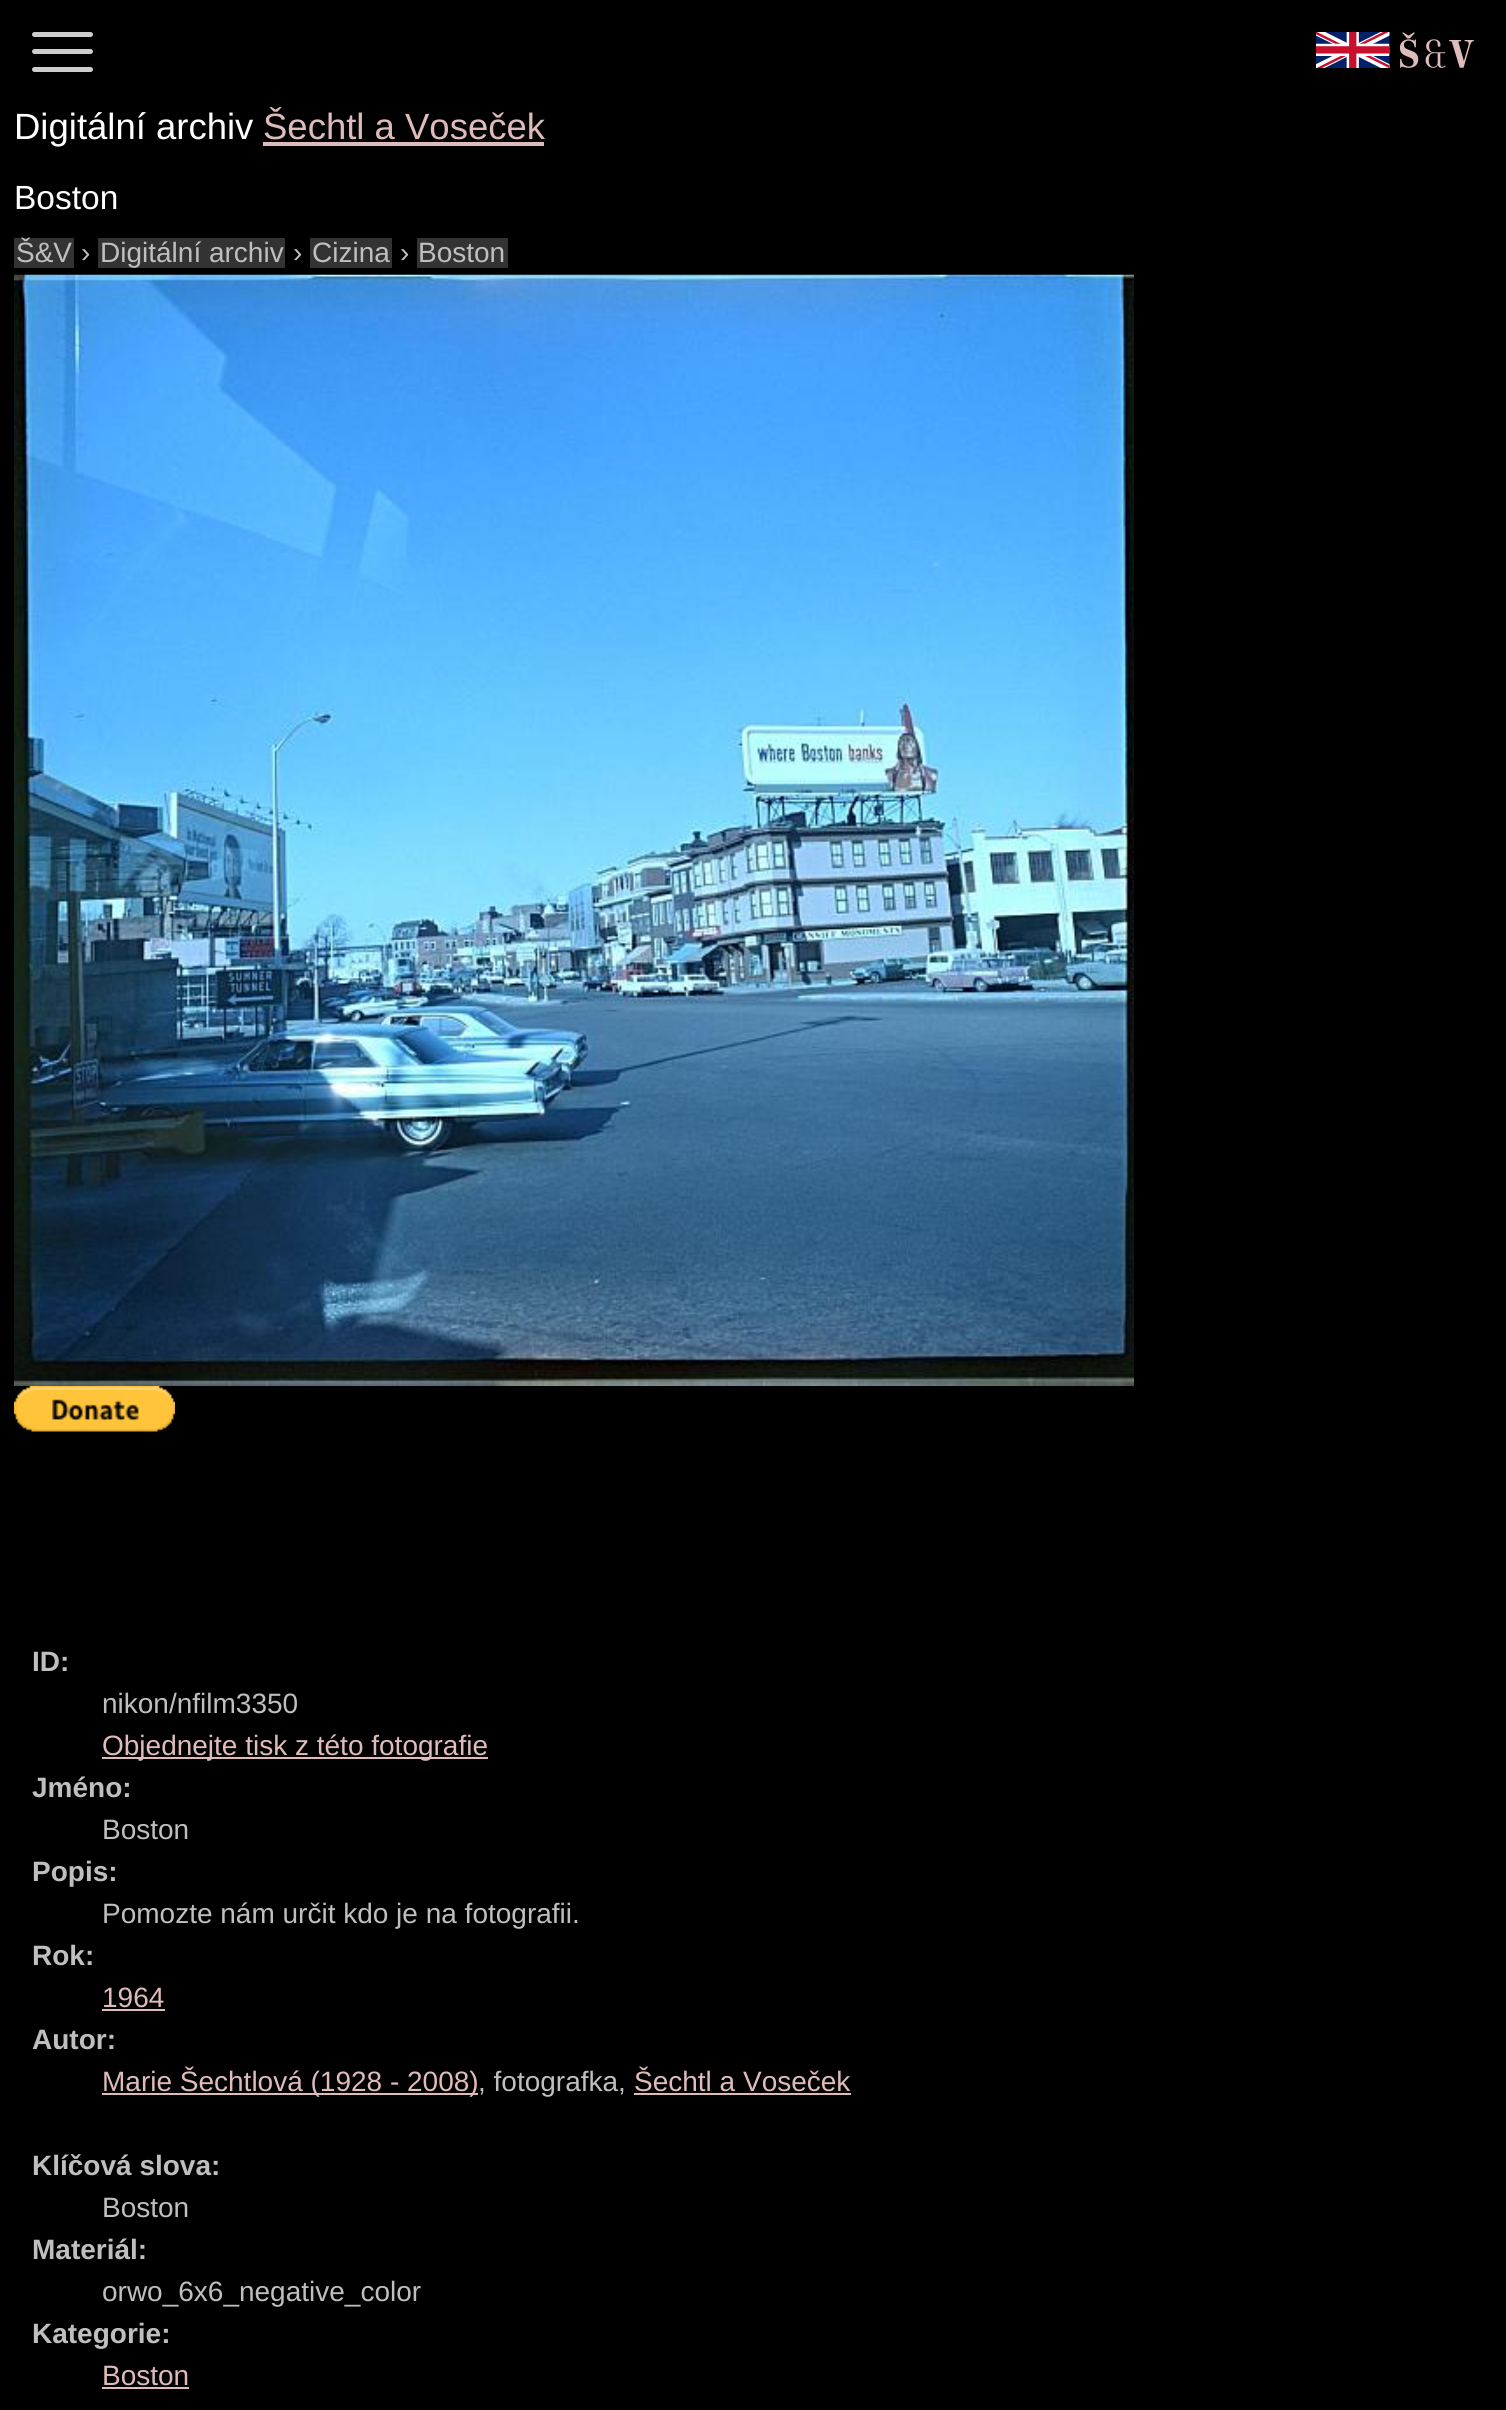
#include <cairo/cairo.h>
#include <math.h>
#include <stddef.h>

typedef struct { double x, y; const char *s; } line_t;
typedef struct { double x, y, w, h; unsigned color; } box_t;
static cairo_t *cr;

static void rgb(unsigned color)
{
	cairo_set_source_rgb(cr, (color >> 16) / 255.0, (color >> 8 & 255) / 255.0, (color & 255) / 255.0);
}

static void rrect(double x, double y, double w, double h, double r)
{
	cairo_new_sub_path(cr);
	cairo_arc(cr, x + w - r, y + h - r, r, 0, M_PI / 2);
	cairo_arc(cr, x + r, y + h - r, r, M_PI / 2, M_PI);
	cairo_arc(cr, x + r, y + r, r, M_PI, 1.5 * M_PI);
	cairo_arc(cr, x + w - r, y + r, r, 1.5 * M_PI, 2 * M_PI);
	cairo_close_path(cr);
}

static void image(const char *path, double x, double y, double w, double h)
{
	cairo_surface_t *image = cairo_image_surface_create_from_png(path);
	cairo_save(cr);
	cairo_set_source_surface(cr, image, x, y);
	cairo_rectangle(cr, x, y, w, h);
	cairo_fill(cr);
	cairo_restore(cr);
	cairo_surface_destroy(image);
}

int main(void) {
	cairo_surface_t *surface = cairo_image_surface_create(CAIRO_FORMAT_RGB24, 1506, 2410);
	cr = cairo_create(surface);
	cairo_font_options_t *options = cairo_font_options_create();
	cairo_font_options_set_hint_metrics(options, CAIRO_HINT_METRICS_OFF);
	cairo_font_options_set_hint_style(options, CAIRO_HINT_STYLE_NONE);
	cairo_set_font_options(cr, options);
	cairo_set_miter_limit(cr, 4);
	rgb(0x000000);
	cairo_paint(cr);
	rgb(0xcdcdcd);
	rrect(32, 32, 61, 5, 2.5);
	cairo_fill(cr);
	image("img/1.png", 1316, 32, 74, 36);
	image("img/2.png", 1399, 32, 75, 36);
	rrect(32, 49, 61, 5, 2.5);
	cairo_fill(cr);
	rrect(32, 67, 61, 5, 2.5);
	cairo_fill(cr);
	{
		static const box_t items[] = {
			{263, 142, 281, 4, 0xdfbbbb},
			{14, 238, 60, 30, 0x333333},
			{98, 238, 187, 30, 0x333333},
			{310, 238, 82, 30, 0x333333},
			{417, 238, 91, 30, 0x333333},
		};
		for (size_t i = 0; i < sizeof items / sizeof *items; i++) {
			rgb(items[i].color);
			cairo_rectangle(cr, items[i].x, items[i].y, items[i].w, items[i].h);
			cairo_fill(cr);
		}
	}
	image("img/3.png", 14, 274, 1120, 1112);
	image("img/4.png", 14, 1386, 161, 46);
	{
		static const box_t items[] = {
			{102, 1757, 386, 2, 0xdfbbbb},
			{102, 2009, 63, 2, 0xdfbbbb},
			{102, 2093, 376, 2, 0xdfbbbb},
			{634, 2093, 217, 2, 0xdfbbbb},
			{102, 2387, 87, 2, 0xdfbbbb},
		};
		for (size_t i = 0; i < sizeof items / sizeof *items; i++) {
			rgb(items[i].color);
			cairo_rectangle(cr, items[i].x, items[i].y, items[i].w, items[i].h);
			cairo_fill(cr);
		}
	}
	cairo_select_font_face(cr, "Liberation Sans", CAIRO_FONT_SLANT_NORMAL, CAIRO_FONT_WEIGHT_NORMAL);
	cairo_set_font_size(cr, 36.5);
	rgb(0xffffff);
	cairo_move_to(cr, 14, 139);
	cairo_show_text(cr, "Digitální archiv");
	rgb(0xdfbbbb);
	cairo_move_to(cr, 263, 139);
	cairo_show_text(cr, "Šechtl a Voseček");
	cairo_set_font_size(cr, 33.5);
	rgb(0xffffff);
	cairo_move_to(cr, 14, 209);
	cairo_show_text(cr, "Boston");
	cairo_set_font_size(cr, 28);
	rgb(0xbfbfbf);
	{
		static const line_t items[] = {
			{16, 262, "Š&V"},
			{81, 262, "›"},
			{100, 262, "Digitální archiv"},
			{293, 262, "›"},
			{312, 262, "Cizina"},
			{400, 262, "›"},
			{418, 262, "Boston"},
		};
		for (size_t i = 0; i < sizeof items / sizeof *items; i++) {
			cairo_move_to(cr, items[i].x, items[i].y);
			cairo_show_text(cr, items[i].s);
		}
	}
	cairo_select_font_face(cr, "Liberation Sans", CAIRO_FONT_SLANT_NORMAL, CAIRO_FONT_WEIGHT_BOLD);
	cairo_move_to(cr, 32, 1671);
	cairo_show_text(cr, "ID:");
	cairo_select_font_face(cr, "Liberation Sans", CAIRO_FONT_SLANT_NORMAL, CAIRO_FONT_WEIGHT_NORMAL);
	cairo_move_to(cr, 102, 1713);
	cairo_show_text(cr, "nikon/nfilm3350");
	rgb(0xdfbbbb);
	cairo_move_to(cr, 102, 1755);
	cairo_show_text(cr, "Objednejte tisk z této fotografie");
	cairo_select_font_face(cr, "Liberation Sans", CAIRO_FONT_SLANT_NORMAL, CAIRO_FONT_WEIGHT_BOLD);
	rgb(0xbfbfbf);
	cairo_move_to(cr, 32, 1797);
	cairo_show_text(cr, "Jméno:");
	cairo_select_font_face(cr, "Liberation Sans", CAIRO_FONT_SLANT_NORMAL, CAIRO_FONT_WEIGHT_NORMAL);
	cairo_move_to(cr, 102, 1839);
	cairo_show_text(cr, "Boston");
	cairo_select_font_face(cr, "Liberation Sans", CAIRO_FONT_SLANT_NORMAL, CAIRO_FONT_WEIGHT_BOLD);
	cairo_move_to(cr, 32, 1881);
	cairo_show_text(cr, "Popis:");
	cairo_select_font_face(cr, "Liberation Sans", CAIRO_FONT_SLANT_NORMAL, CAIRO_FONT_WEIGHT_NORMAL);
	cairo_move_to(cr, 102, 1923);
	cairo_show_text(cr, "Pomozte nám určit kdo je na fotografii.");
	cairo_select_font_face(cr, "Liberation Sans", CAIRO_FONT_SLANT_NORMAL, CAIRO_FONT_WEIGHT_BOLD);
	cairo_move_to(cr, 32, 1965);
	cairo_show_text(cr, "Rok:");
	cairo_select_font_face(cr, "Liberation Sans", CAIRO_FONT_SLANT_NORMAL, CAIRO_FONT_WEIGHT_NORMAL);
	rgb(0xdfbbbb);
	cairo_move_to(cr, 102, 2007);
	cairo_show_text(cr, "1964");
	cairo_select_font_face(cr, "Liberation Sans", CAIRO_FONT_SLANT_NORMAL, CAIRO_FONT_WEIGHT_BOLD);
	rgb(0xbfbfbf);
	cairo_move_to(cr, 32, 2049);
	cairo_show_text(cr, "Autor:");
	cairo_select_font_face(cr, "Liberation Sans", CAIRO_FONT_SLANT_NORMAL, CAIRO_FONT_WEIGHT_NORMAL);
	rgb(0xdfbbbb);
	cairo_move_to(cr, 102, 2091);
	cairo_show_text(cr, "Marie Šechtlová (1928 - 2008)");
	rgb(0xbfbfbf);
	cairo_move_to(cr, 478, 2091);
	cairo_show_text(cr, ", fotografka,");
	rgb(0xdfbbbb);
	cairo_move_to(cr, 634, 2091);
	cairo_show_text(cr, "Šechtl a Voseček");
	cairo_select_font_face(cr, "Liberation Sans", CAIRO_FONT_SLANT_NORMAL, CAIRO_FONT_WEIGHT_BOLD);
	rgb(0xbfbfbf);
	cairo_move_to(cr, 32, 2175);
	cairo_show_text(cr, "Klíčová slova:");
	cairo_select_font_face(cr, "Liberation Sans", CAIRO_FONT_SLANT_NORMAL, CAIRO_FONT_WEIGHT_NORMAL);
	cairo_move_to(cr, 102, 2217);
	cairo_show_text(cr, "Boston");
	cairo_select_font_face(cr, "Liberation Sans", CAIRO_FONT_SLANT_NORMAL, CAIRO_FONT_WEIGHT_BOLD);
	cairo_move_to(cr, 32, 2259);
	cairo_show_text(cr, "Materiál:");
	cairo_select_font_face(cr, "Liberation Sans", CAIRO_FONT_SLANT_NORMAL, CAIRO_FONT_WEIGHT_NORMAL);
	cairo_move_to(cr, 102, 2301);
	cairo_show_text(cr, "orwo_6x6_negative_color");
	cairo_select_font_face(cr, "Liberation Sans", CAIRO_FONT_SLANT_NORMAL, CAIRO_FONT_WEIGHT_BOLD);
	cairo_move_to(cr, 32, 2343);
	cairo_show_text(cr, "Kategorie:");
	cairo_select_font_face(cr, "Liberation Sans", CAIRO_FONT_SLANT_NORMAL, CAIRO_FONT_WEIGHT_NORMAL);
	rgb(0xdfbbbb);
	cairo_move_to(cr, 102, 2385);
	cairo_show_text(cr, "Boston");
	cairo_surface_write_to_png(surface, "page.png");
	cairo_font_options_destroy(options);
	cairo_destroy(cr);
	cairo_surface_destroy(surface);
	return 0;
}
